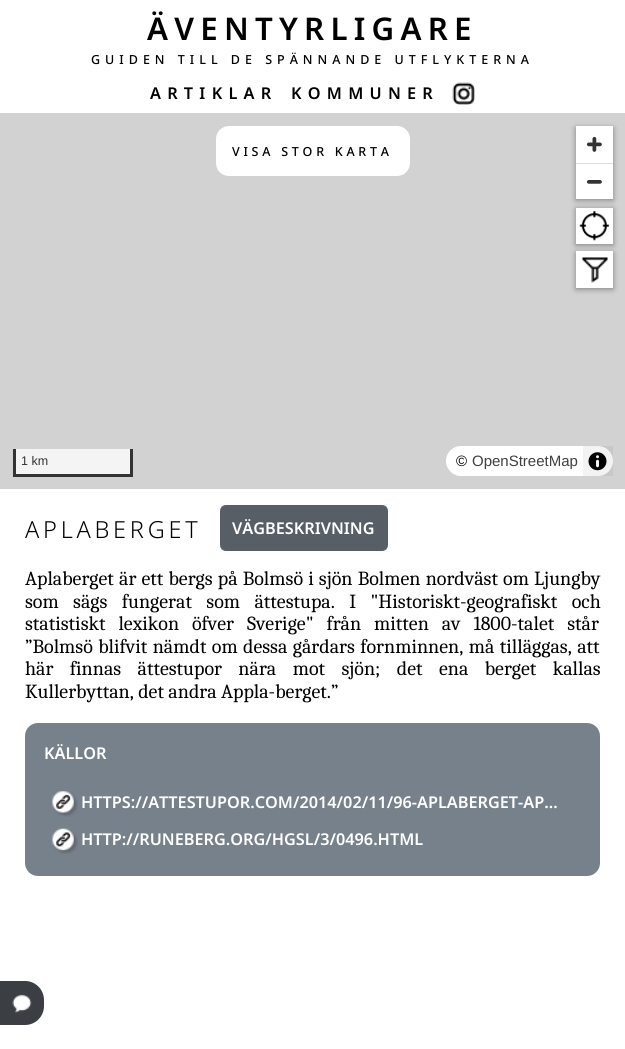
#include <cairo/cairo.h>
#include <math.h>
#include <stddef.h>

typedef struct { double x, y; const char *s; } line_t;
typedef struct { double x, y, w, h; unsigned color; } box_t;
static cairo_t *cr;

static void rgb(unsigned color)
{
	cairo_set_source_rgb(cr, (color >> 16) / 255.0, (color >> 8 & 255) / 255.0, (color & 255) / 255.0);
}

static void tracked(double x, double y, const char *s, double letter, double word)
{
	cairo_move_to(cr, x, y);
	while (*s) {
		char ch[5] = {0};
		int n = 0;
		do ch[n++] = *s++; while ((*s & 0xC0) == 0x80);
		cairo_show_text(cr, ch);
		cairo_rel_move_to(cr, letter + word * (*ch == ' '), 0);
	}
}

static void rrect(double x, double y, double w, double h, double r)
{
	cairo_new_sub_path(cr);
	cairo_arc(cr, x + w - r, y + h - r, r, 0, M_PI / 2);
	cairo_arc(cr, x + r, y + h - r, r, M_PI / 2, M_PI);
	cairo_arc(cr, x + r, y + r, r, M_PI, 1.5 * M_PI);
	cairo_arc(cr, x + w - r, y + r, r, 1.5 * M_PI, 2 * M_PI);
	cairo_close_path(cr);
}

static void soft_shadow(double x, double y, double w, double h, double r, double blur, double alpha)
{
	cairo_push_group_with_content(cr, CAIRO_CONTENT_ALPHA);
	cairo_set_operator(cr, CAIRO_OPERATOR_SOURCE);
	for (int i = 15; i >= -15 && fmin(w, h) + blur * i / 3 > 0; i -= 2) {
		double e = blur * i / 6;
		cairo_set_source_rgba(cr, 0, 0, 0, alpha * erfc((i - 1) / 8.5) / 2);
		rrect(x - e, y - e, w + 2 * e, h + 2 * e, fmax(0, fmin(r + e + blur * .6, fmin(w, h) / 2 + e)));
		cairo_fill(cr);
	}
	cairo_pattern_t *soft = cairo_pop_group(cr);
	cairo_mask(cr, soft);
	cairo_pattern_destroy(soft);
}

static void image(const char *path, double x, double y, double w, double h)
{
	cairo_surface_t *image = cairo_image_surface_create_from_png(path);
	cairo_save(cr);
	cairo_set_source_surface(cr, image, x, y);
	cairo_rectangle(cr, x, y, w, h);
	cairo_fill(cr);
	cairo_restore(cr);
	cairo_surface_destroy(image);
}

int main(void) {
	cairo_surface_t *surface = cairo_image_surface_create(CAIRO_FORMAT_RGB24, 625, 1049);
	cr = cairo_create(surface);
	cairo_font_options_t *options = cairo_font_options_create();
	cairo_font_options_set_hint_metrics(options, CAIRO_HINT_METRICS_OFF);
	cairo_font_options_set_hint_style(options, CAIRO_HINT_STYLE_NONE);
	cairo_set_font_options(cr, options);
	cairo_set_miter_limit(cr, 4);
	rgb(0xffffff);
	cairo_paint(cr);
	image("img/1.png", 452, 82, 23, 23);
	rgb(0xd2d2d2);
	cairo_rectangle(cr, 0, 113, 625, 376);
	cairo_fill(cr);
	rgb(0xffffff);
	rrect(216, 126, 194, 50, 13);
	cairo_fill(cr);
	rgb(0x000000);
	soft_shadow(576, 209, 37, 36, 0, 3, 0.4);
	soft_shadow(576, 128, 37, 72, 0, 3, 0.4);
	rgb(0xffffff);
	cairo_rectangle(cr, 576, 208, 37, 36);
	cairo_fill(cr);
	image("img/2.png", 579, 211, 30, 30);
	rgb(0x000000);
	soft_shadow(576, 253, 37, 36, 0, 3, 0.4);
	rgb(0xffffff);
	cairo_rectangle(cr, 576, 251, 37, 37);
	cairo_fill(cr);
	image("img/3.png", 582, 257, 26, 26);
	cairo_rectangle(cr, 576, 126, 37, 73);
	cairo_fill(cr);
	image("img/4.png", 586, 136, 16, 16);
	rgb(0xdddddd);
	cairo_rectangle(cr, 576, 163, 37, 1);
	cairo_fill(cr);
	image("img/5.png", 586, 180, 16, 4);
	{
		static const box_t items[] = {
			{16, 449, 114, 25, 0xf4f4f4},
			{130, 449, 3, 27, 0x333333},
			{13, 474, 120, 3, 0x333333},
			{13, 449, 3, 27, 0x333333},
		};
		for (size_t i = 0; i < sizeof items / sizeof *items; i++) {
			rgb(items[i].color);
			cairo_rectangle(cr, items[i].x, items[i].y, items[i].w, items[i].h);
			cairo_fill(cr);
		}
	}
	rgb(0xffffff);
	rrect(446, 446, 167, 30, 15);
	cairo_fill(cr);
	cairo_set_source_rgba(cr, 0, 0, 0, 0.05);
	cairo_rectangle(cr, 583, 446, 30, 30);
	cairo_fill(cr);
	image("img/6.png", 588, 452, 19, 19);
	rgb(0x575e65);
	rrect(220, 505, 168, 46, 6);
	cairo_fill(cr);
	rgb(0x77818b);
	rrect(25, 723, 575, 153, 13);
	cairo_fill(cr);
	image("img/7.png", 52, 791, 26, 26);
	image("img/8.png", 52, 828, 26, 26);
	rgb(0x3b3f44);
	cairo_new_path(cr);
	cairo_move_to(cr, 0, 981);
	cairo_line_to(cr, 25, 981);
	cairo_curve_to(cr, 35.5, 981, 44, 989.5, 44, 1000);
	cairo_line_to(cr, 44, 1006);
	cairo_curve_to(cr, 44, 1016.5, 35.5, 1025, 25, 1025);
	cairo_line_to(cr, 0, 1025);
	cairo_close_path(cr);
	cairo_fill(cr);
	image("img/9.png", 12, 994, 20, 19);
	cairo_select_font_face(cr, "Noto Sans SemiBold", CAIRO_FONT_SLANT_NORMAL, CAIRO_FONT_WEIGHT_NORMAL);
	cairo_set_font_size(cr, 31.25);
	rgb(0x000000);
	tracked(147, 40, "ÄVENTYRLIGARE", 6.25, 0);
	cairo_select_font_face(cr, "Noto Sans Medium", CAIRO_FONT_SLANT_NORMAL, CAIRO_FONT_WEIGHT_NORMAL);
	cairo_set_font_size(cr, 12.5);
	tracked(91, 64, "GUIDEN TILL DE SPÄNNANDE UTFLYKTERNA", 5, 0);
	cairo_select_font_face(cr, "Noto Sans SemiBold", CAIRO_FONT_SLANT_NORMAL, CAIRO_FONT_WEIGHT_NORMAL);
	cairo_set_font_size(cr, 16.25);
	tracked(150, 99, "ARTIKLAR", 6.25, 0);
	tracked(291, 99, "KOMMUNER", 6.25, 0);
	cairo_select_font_face(cr, "Noto Sans Medium", CAIRO_FONT_SLANT_NORMAL, CAIRO_FONT_WEIGHT_NORMAL);
	cairo_set_font_size(cr, 12.5);
	tracked(232, 156, "VISA STOR KARTA", 3.75, 0);
	cairo_select_font_face(cr, "Liberation Sans", CAIRO_FONT_SLANT_NORMAL, CAIRO_FONT_WEIGHT_NORMAL);
	rgb(0x333333);
	cairo_move_to(cr, 21, 465);
	cairo_show_text(cr, "1 km");
	cairo_set_font_size(cr, 15);
	rgb(0x000000);
	cairo_move_to(cr, 456, 466);
	cairo_show_text(cr, "©");
	rgb(0x404040);
	cairo_move_to(cr, 472, 466);
	cairo_show_text(cr, "OpenStreetMap");
	cairo_select_font_face(cr, "Noto Sans Light", CAIRO_FONT_SLANT_NORMAL, CAIRO_FONT_WEIGHT_NORMAL);
	cairo_set_font_size(cr, 23.5);
	rgb(0x000000);
	tracked(25, 538, "APLABERGET", 3.75, 0);
	cairo_select_font_face(cr, "Noto Sans SemiBold", CAIRO_FONT_SLANT_NORMAL, CAIRO_FONT_WEIGHT_NORMAL);
	cairo_set_font_size(cr, 16.25);
	rgb(0xffffff);
	cairo_move_to(cr, 232, 534);
	cairo_show_text(cr, "VÄGBESKRIVNING");
	cairo_select_font_face(cr, "Caladea", CAIRO_FONT_SLANT_NORMAL, CAIRO_FONT_WEIGHT_NORMAL);
	cairo_set_font_size(cr, 20);
	rgb(0x000000);
	tracked(25, 585, "Aplaberget är ett bergs på Bolmsö i sjön Bolmen nordväst om Ljungby", 0, 0.75);
	tracked(25, 608, "som sägs fungerat som ättestupa. I \"Historiskt-geografiskt och", 0, 10);
	tracked(25, 630, "statistiskt lexikon öfver Sverige\" från mitten av 1800-talet står", 0, 8.5);
	tracked(25, 653, "”Bolmsö blifvit nämdt om dessa gårdars fornminnen, må tilläggas, att", 0, 1);
	tracked(25, 675, "här finnas ättestupor nära mot sjön; det ena berget kallas", 0, 12);
	cairo_move_to(cr, 25, 698);
	cairo_show_text(cr, "Kullerbyttan, det andra Appla-berget.”");
	cairo_select_font_face(cr, "Noto Sans SemiBold", CAIRO_FONT_SLANT_NORMAL, CAIRO_FONT_WEIGHT_NORMAL);
	cairo_set_font_size(cr, 16.25);
	rgb(0xffffff);
	{
		static const line_t items[] = {
			{44, 759, "KÄLLOR"},
			{81, 808, "HTTPS://ATTESTUPOR.COM/2014/02/11/96-APLABERGET-AP…"},
			{81, 845, "HTTP://RUNEBERG.ORG/HGSL/3/0496.HTML"},
		};
		for (size_t i = 0; i < sizeof items / sizeof *items; i++) {
			cairo_move_to(cr, items[i].x, items[i].y);
			cairo_show_text(cr, items[i].s);
		}
	}
	cairo_surface_write_to_png(surface, "page.png");
	cairo_font_options_destroy(options);
	cairo_destroy(cr);
	cairo_surface_destroy(surface);
	return 0;
}
